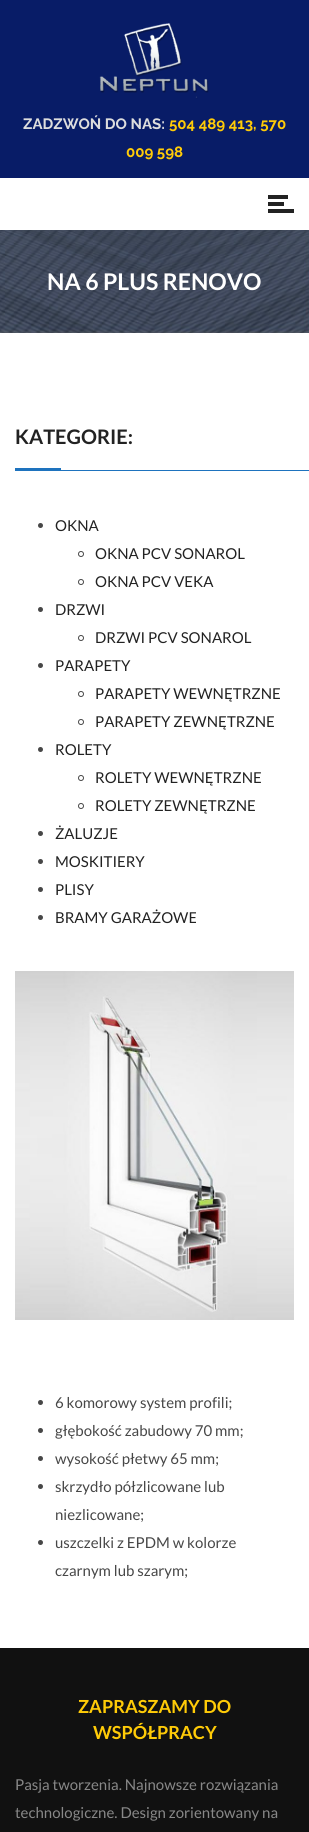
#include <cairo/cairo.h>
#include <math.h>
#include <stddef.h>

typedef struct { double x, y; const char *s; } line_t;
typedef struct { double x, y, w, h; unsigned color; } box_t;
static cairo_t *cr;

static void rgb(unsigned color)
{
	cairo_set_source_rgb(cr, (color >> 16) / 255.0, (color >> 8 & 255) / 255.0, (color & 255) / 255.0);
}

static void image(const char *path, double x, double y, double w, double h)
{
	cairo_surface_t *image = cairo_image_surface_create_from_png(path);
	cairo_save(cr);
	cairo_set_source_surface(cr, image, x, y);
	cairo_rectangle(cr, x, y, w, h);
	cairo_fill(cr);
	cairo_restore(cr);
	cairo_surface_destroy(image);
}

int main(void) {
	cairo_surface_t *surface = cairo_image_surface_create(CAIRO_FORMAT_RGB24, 309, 1832);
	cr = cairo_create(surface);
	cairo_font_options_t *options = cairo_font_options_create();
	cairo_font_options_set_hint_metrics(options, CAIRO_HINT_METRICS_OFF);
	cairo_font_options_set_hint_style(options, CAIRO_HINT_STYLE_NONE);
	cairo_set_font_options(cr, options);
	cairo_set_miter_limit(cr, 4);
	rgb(0xffffff);
	cairo_paint(cr);
	rgb(0x081c67);
	cairo_rectangle(cr, 0, 0, 309, 178);
	cairo_fill(cr);
	image("img/1.png", 99, 23, 110, 76);
	{
		static const box_t items[] = {
			{268, 209, 26, 4, 0x222222},
			{268, 202, 16, 4, 0x222222},
			{268, 195, 20, 4, 0x222222},
		};
		for (size_t i = 0; i < sizeof items / sizeof *items; i++) {
			rgb(items[i].color);
			cairo_rectangle(cr, items[i].x, items[i].y, items[i].w, items[i].h);
			cairo_fill(cr);
		}
	}
	image("img/2.png", 0, 230, 309, 103);
	rgb(0x1e73be);
	cairo_rectangle(cr, 15, 468, 46, 2);
	cairo_fill(cr);
	cairo_rectangle(cr, 15, 470, 294, 1);
	cairo_fill(cr);
	rgb(0x474747);
	cairo_arc(cr, 40.5, 525.5, 2.5, 0, 2 * M_PI);
	cairo_fill(cr);
	cairo_arc(cr, 81, 554, 2.5, 0, 2 * M_PI);
	cairo_set_line_width(cr, 1);
	cairo_stroke(cr);
	cairo_arc(cr, 81, 582, 2.5, 0, 2 * M_PI);
	cairo_stroke(cr);
	cairo_arc(cr, 40.5, 609.5, 2.5, 0, 2 * M_PI);
	cairo_fill(cr);
	cairo_arc(cr, 81, 638, 2.5, 0, 2 * M_PI);
	cairo_stroke(cr);
	cairo_arc(cr, 40.5, 665.5, 2.5, 0, 2 * M_PI);
	cairo_fill(cr);
	cairo_arc(cr, 81, 694, 2.5, 0, 2 * M_PI);
	cairo_stroke(cr);
	cairo_arc(cr, 81, 722, 2.5, 0, 2 * M_PI);
	cairo_stroke(cr);
	cairo_arc(cr, 40.5, 749.5, 2.5, 0, 2 * M_PI);
	cairo_fill(cr);
	cairo_arc(cr, 81, 778, 2.5, 0, 2 * M_PI);
	cairo_stroke(cr);
	cairo_arc(cr, 81, 806, 2.5, 0, 2 * M_PI);
	cairo_stroke(cr);
	cairo_arc(cr, 40.5, 833.5, 2.5, 0, 2 * M_PI);
	cairo_fill(cr);
	cairo_arc(cr, 40.5, 861.5, 2.5, 0, 2 * M_PI);
	cairo_fill(cr);
	cairo_arc(cr, 40.5, 889.5, 2.5, 0, 2 * M_PI);
	cairo_fill(cr);
	cairo_arc(cr, 40.5, 917.5, 2.5, 0, 2 * M_PI);
	cairo_fill(cr);
	image("img/3.png", 15, 971, 279, 349);
	cairo_arc(cr, 40.5, 1402.5, 2.5, 0, 2 * M_PI);
	cairo_fill(cr);
	cairo_arc(cr, 40.5, 1430.5, 2.5, 0, 2 * M_PI);
	cairo_fill(cr);
	cairo_arc(cr, 40.5, 1458.5, 2.5, 0, 2 * M_PI);
	cairo_fill(cr);
	cairo_arc(cr, 40.5, 1486.5, 2.5, 0, 2 * M_PI);
	cairo_fill(cr);
	cairo_arc(cr, 40.5, 1542.5, 2.5, 0, 2 * M_PI);
	cairo_fill(cr);
	rgb(0x111111);
	cairo_rectangle(cr, 0, 1648, 309, 184);
	cairo_fill(cr);
	cairo_select_font_face(cr, "Raleway", CAIRO_FONT_SLANT_NORMAL, CAIRO_FONT_WEIGHT_BOLD);
	cairo_set_font_size(cr, 15);
	rgb(0xdddddd);
	cairo_move_to(cr, 23, 129);
	cairo_show_text(cr, "ZADZWOŃ DO NAS:");
	rgb(0xffcb07);
	cairo_move_to(cr, 169, 129);
	cairo_show_text(cr, "504 489 413, 570");
	cairo_move_to(cr, 126, 157);
	cairo_show_text(cr, "009 598");
	cairo_select_font_face(cr, "Lato", CAIRO_FONT_SLANT_NORMAL, CAIRO_FONT_WEIGHT_BOLD);
	cairo_set_font_size(cr, 23);
	rgb(0xffffff);
	cairo_move_to(cr, 47, 290);
	cairo_show_text(cr, "NA 6 PLUS RENOVO");
	cairo_set_font_size(cr, 20);
	rgb(0x222222);
	cairo_move_to(cr, 15, 444);
	cairo_show_text(cr, "KATEGORIE:");
	cairo_select_font_face(cr, "Lato", CAIRO_FONT_SLANT_NORMAL, CAIRO_FONT_WEIGHT_NORMAL);
	cairo_set_font_size(cr, 15);
	{
		static const line_t items[] = {
			{55, 531, "OKNA"},
			{95, 559, "OKNA PCV SONAROL"},
			{95, 587, "OKNA PCV VEKA"},
			{55, 615, "DRZWI"},
			{95, 643, "DRZWI PCV SONAROL"},
			{55, 671, "PARAPETY"},
			{95, 699, "PARAPETY WEWNĘTRZNE"},
			{95, 727, "PARAPETY ZEWNĘTRZNE"},
			{55, 755, "ROLETY"},
			{95, 783, "ROLETY WEWNĘTRZNE"},
			{95, 811, "ROLETY ZEWNĘTRZNE"},
			{55, 839, "ŻALUZJE"},
			{55, 867, "MOSKITIERY"},
			{55, 895, "PLISY"},
			{55, 923, "BRAMY GARAŻOWE"},
		};
		for (size_t i = 0; i < sizeof items / sizeof *items; i++) {
			cairo_move_to(cr, items[i].x, items[i].y);
			cairo_show_text(cr, items[i].s);
		}
	}
	rgb(0x474747);
	{
		static const line_t items[] = {
			{55, 1408, "6 komorowy system profili;"},
			{55, 1436, "głębokość zabudowy 70 mm;"},
			{55, 1464, "wysokość płetwy 65 mm;"},
			{55, 1492, "skrzydło półzlicowane lub"},
			{55, 1520, "niezlicowane;"},
			{55, 1548, "uszczelki z EPDM w kolorze"},
			{55, 1576, "czarnym lub szarym;"},
		};
		for (size_t i = 0; i < sizeof items / sizeof *items; i++) {
			cairo_move_to(cr, items[i].x, items[i].y);
			cairo_show_text(cr, items[i].s);
		}
	}
	cairo_select_font_face(cr, "Lato", CAIRO_FONT_SLANT_NORMAL, CAIRO_FONT_WEIGHT_BOLD);
	cairo_set_font_size(cr, 18);
	rgb(0xffcb07);
	cairo_move_to(cr, 78, 1713);
	cairo_show_text(cr, "ZAPRASZAMY DO");
	cairo_move_to(cr, 93, 1739);
	cairo_show_text(cr, "WSPÓŁPRACY");
	cairo_select_font_face(cr, "Lato", CAIRO_FONT_SLANT_NORMAL, CAIRO_FONT_WEIGHT_NORMAL);
	cairo_set_font_size(cr, 15);
	rgb(0x888888);
	cairo_move_to(cr, 15, 1790);
	cairo_show_text(cr, "Pasja tworzenia. Najnowsze rozwiązania");
	cairo_move_to(cr, 15, 1818);
	cairo_show_text(cr, "technologiczne. Design zorientowany na");
	cairo_surface_write_to_png(surface, "page.png");
	cairo_font_options_destroy(options);
	cairo_destroy(cr);
	cairo_surface_destroy(surface);
	return 0;
}
